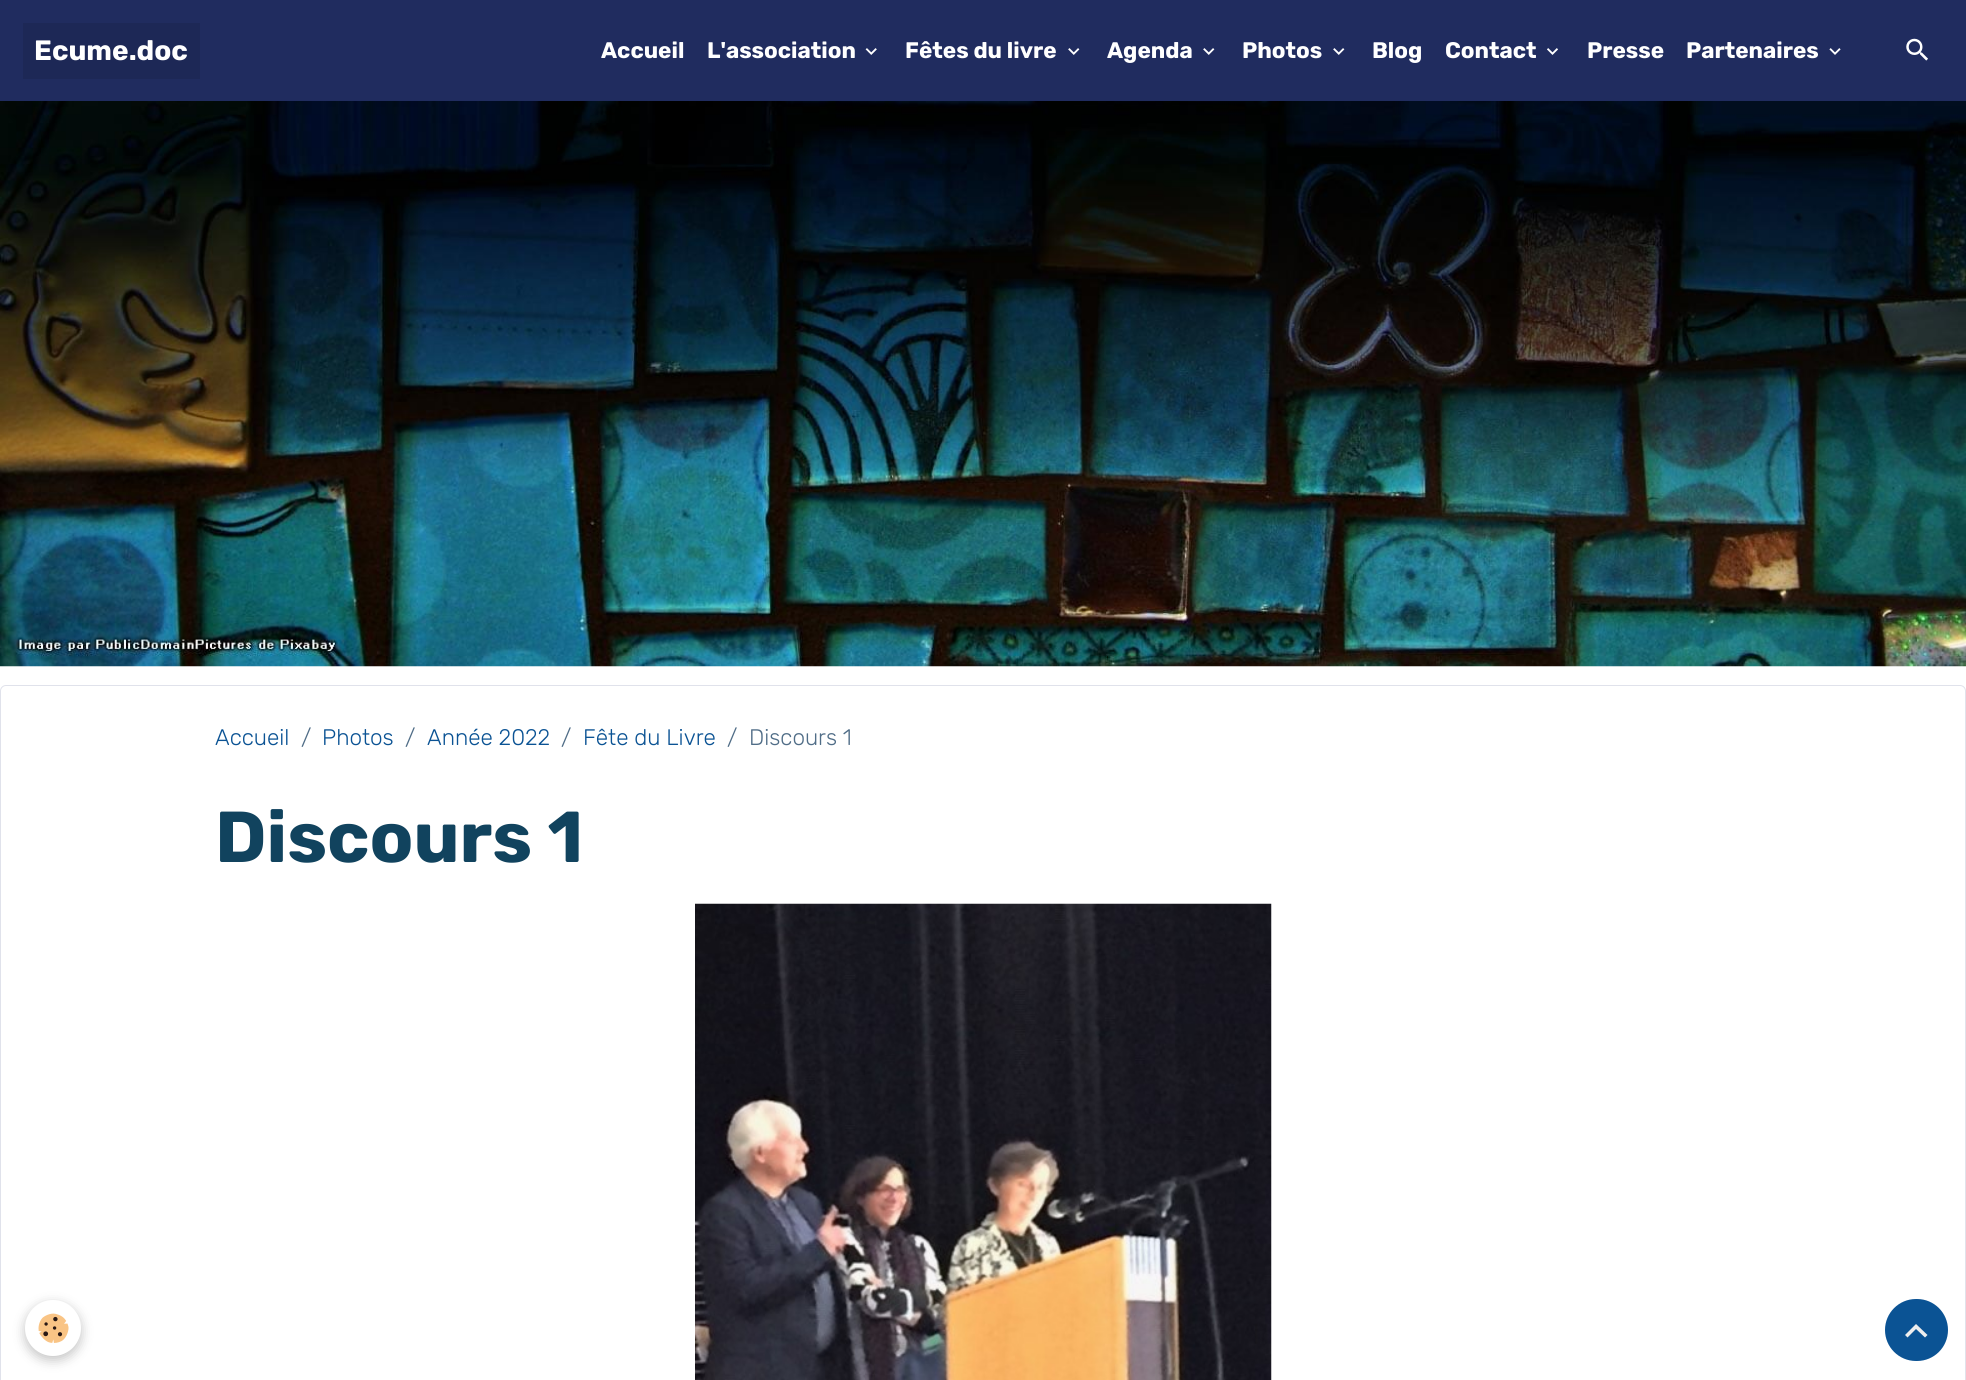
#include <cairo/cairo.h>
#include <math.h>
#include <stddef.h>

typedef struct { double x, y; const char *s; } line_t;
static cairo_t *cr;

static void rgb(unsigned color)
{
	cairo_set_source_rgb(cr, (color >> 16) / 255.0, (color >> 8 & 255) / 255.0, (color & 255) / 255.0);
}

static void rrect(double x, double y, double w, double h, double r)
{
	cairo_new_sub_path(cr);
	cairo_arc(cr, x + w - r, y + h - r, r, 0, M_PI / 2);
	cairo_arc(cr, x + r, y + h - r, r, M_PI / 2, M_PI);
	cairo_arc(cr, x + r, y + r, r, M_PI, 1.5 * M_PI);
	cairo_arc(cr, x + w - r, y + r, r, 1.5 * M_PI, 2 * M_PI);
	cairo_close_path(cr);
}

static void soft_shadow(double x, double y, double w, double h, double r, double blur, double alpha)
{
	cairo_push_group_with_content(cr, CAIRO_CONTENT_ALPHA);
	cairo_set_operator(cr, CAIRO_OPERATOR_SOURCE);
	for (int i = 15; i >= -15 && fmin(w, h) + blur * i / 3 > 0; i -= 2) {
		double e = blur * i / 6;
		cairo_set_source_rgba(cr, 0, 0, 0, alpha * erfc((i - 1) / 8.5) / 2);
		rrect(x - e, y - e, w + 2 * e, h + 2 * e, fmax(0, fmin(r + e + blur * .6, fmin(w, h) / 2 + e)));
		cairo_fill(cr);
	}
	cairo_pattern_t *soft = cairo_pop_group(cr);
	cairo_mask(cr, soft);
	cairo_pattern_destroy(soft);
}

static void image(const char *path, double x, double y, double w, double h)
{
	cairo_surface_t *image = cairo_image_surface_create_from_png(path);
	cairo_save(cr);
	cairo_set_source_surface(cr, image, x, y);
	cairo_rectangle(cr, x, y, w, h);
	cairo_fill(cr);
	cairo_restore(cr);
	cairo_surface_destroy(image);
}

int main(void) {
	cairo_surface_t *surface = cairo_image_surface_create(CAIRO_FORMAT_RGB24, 1966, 1380);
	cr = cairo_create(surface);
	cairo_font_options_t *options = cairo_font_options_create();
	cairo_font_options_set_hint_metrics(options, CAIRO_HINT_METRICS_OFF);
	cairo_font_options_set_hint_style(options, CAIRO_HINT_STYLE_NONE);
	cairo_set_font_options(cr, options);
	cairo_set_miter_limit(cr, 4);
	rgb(0xffffff);
	cairo_paint(cr);
	rgb(0x202c5f);
	cairo_rectangle(cr, 0, 0, 1966, 101);
	cairo_fill(cr);
	rgb(0x1d2856);
	cairo_rectangle(cr, 23, 23, 177, 56);
	cairo_fill(cr);
	image("img/1.png", 865, 48, 12, 7);
	image("img/2.png", 1068, 48, 12, 7);
	image("img/2.png", 1203, 48, 12, 7);
	image("img/2.png", 1333, 48, 12, 7);
	image("img/3.png", 1547, 48, 11, 7);
	image("img/4.png", 1829, 48, 12, 7);
	image("img/5.png", 1906, 38, 22, 23);
	image("img/6.png", 0, 101, 1966, 566);
	rrect(0.5, 685.5, 1965, 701, 5.5);
	rgb(0xe0e2eb);
	cairo_set_line_width(cr, 1);
	cairo_stroke(cr);
	image("img/7.png", 695, 903, 577, 477);
	rgb(0x000000);
	soft_shadow(25, 1304, 56, 56, 28, 6, 0.24);
	rgb(0xffffff);
	cairo_arc(cr, 53, 1328, 28, 0, 2 * M_PI);
	cairo_fill(cr);
	image("img/8.png", 38, 1313, 31, 30);
	rgb(0x0b5394);
	rrect(1885, 1299, 63, 62, 31);
	cairo_fill(cr);
	rgb(0xeeeeee);
	cairo_new_path(cr);
	cairo_move_to(cr, 1916, 1324);
	cairo_line_to(cr, 1927.5, 1335);
	cairo_line_to(cr, 1925, 1337.5);
	cairo_line_to(cr, 1916, 1329);
	cairo_line_to(cr, 1907.5, 1337.5);
	cairo_line_to(cr, 1905, 1335);
	cairo_close_path(cr);
	cairo_fill(cr);
	cairo_select_font_face(cr, "Rubik", CAIRO_FONT_SLANT_NORMAL, CAIRO_FONT_WEIGHT_BOLD);
	cairo_set_font_size(cr, 28);
	rgb(0xffffff);
	cairo_move_to(cr, 34, 60);
	cairo_show_text(cr, "Ecume.doc");
	cairo_set_font_size(cr, 22.5);
	{
		static const line_t items[] = {
			{601, 58, "Accueil"},
			{707, 58, "L'association"},
			{905, 58, "Fêtes du livre"},
			{1107, 58, "Agenda"},
			{1242, 58, "Photos"},
			{1372, 58, "Blog"},
			{1445, 58, "Contact"},
			{1587, 58, "Presse"},
			{1686, 58, "Partenaires"},
		};
		for (size_t i = 0; i < sizeof items / sizeof *items; i++) {
			cairo_move_to(cr, items[i].x, items[i].y);
			cairo_show_text(cr, items[i].s);
		}
	}
	cairo_select_font_face(cr, "Rubik Light", CAIRO_FONT_SLANT_NORMAL, CAIRO_FONT_WEIGHT_NORMAL);
	rgb(0x0b5394);
	cairo_move_to(cr, 215, 745);
	cairo_show_text(cr, "Accueil");
	rgb(0x506d87);
	cairo_move_to(cr, 301, 745);
	cairo_show_text(cr, "/");
	rgb(0x0b5394);
	cairo_move_to(cr, 322, 745);
	cairo_show_text(cr, "Photos");
	rgb(0x506d87);
	cairo_move_to(cr, 405, 745);
	cairo_show_text(cr, "/");
	rgb(0x0b5394);
	cairo_move_to(cr, 427, 745);
	cairo_show_text(cr, "Année 2022");
	rgb(0x506d87);
	cairo_move_to(cr, 561, 745);
	cairo_show_text(cr, "/");
	rgb(0x0b5394);
	cairo_move_to(cr, 583, 745);
	cairo_show_text(cr, "Fête du Livre");
	rgb(0x506d87);
	cairo_move_to(cr, 727, 745);
	cairo_show_text(cr, "/");
	cairo_move_to(cr, 749, 745);
	cairo_show_text(cr, "Discours 1");
	cairo_select_font_face(cr, "Rubik", CAIRO_FONT_SLANT_NORMAL, CAIRO_FONT_WEIGHT_BOLD);
	cairo_set_font_size(cr, 72);
	rgb(0x11435e);
	cairo_move_to(cr, 215, 862);
	cairo_show_text(cr, "Discours 1");
	cairo_surface_write_to_png(surface, "page.png");
	cairo_font_options_destroy(options);
	cairo_destroy(cr);
	cairo_surface_destroy(surface);
	return 0;
}
